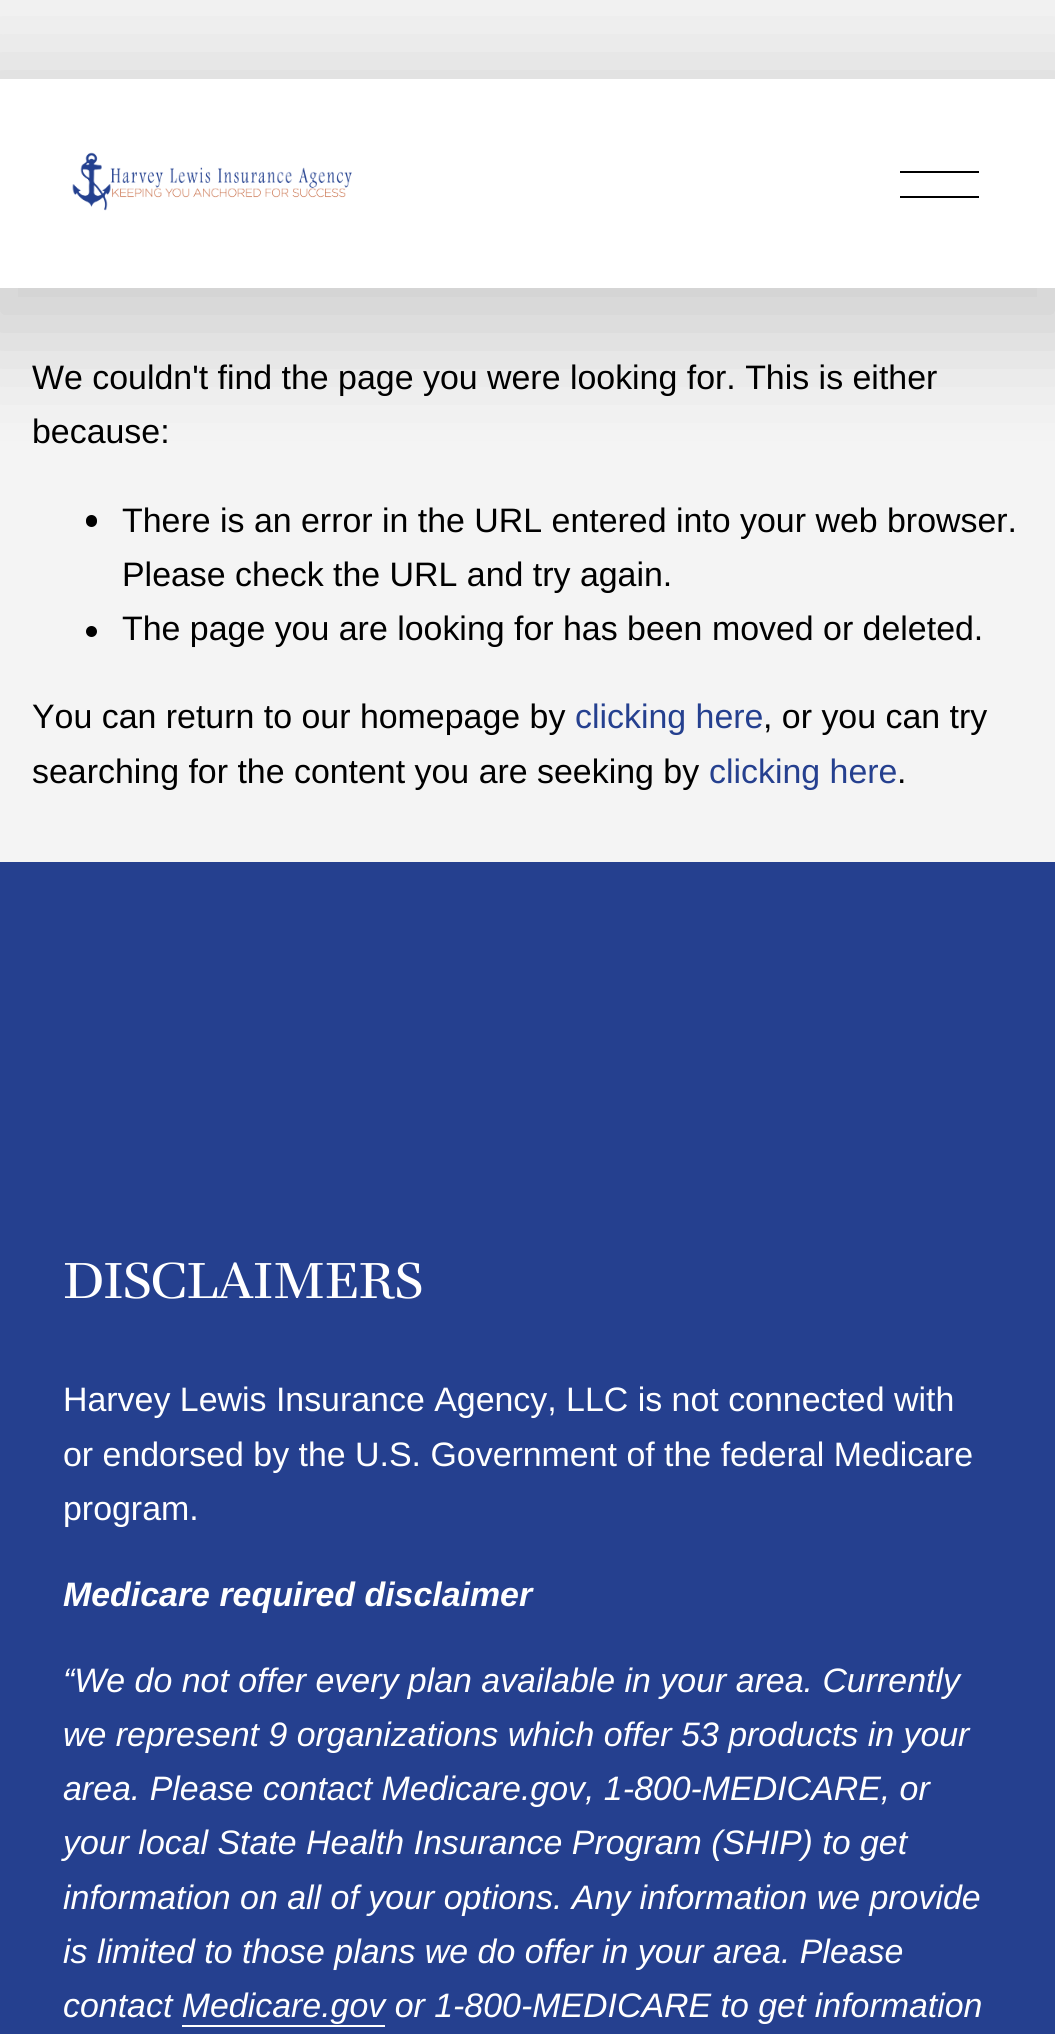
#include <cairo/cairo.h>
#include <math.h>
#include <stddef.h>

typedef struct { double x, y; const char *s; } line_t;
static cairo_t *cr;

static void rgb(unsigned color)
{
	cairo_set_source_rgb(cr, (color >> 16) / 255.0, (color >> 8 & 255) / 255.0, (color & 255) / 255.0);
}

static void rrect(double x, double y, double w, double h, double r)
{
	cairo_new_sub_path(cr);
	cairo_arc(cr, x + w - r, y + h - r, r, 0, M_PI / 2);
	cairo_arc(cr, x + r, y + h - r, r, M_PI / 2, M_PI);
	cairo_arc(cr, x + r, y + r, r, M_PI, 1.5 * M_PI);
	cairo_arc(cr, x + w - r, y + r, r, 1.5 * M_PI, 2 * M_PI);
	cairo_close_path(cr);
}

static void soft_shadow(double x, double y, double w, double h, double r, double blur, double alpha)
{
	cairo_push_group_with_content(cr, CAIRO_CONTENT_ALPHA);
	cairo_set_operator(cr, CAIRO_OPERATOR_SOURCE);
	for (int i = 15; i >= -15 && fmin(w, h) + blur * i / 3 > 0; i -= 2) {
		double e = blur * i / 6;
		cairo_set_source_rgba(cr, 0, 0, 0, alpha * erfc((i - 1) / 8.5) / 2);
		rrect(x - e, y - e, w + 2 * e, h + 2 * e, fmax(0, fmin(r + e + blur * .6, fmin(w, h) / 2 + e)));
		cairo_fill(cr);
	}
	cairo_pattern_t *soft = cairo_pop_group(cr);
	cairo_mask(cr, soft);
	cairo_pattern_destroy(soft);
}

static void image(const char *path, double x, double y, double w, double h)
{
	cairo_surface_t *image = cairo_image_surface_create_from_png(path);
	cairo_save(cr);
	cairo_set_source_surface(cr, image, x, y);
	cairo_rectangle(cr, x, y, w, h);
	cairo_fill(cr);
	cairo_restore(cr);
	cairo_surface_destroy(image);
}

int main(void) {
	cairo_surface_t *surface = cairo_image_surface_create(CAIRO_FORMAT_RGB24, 1055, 2034);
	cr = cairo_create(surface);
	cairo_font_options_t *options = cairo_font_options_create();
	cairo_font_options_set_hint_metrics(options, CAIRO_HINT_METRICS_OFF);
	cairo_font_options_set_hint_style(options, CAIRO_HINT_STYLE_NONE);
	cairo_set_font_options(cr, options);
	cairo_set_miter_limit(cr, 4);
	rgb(0xf4f4f4);
	cairo_paint(cr);
	rgb(0x000000);
	soft_shadow(-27, 79, 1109, 263, 0, 54, 0.15);
	rgb(0xffffff);
	cairo_rectangle(cr, 0, 79, 1055, 209);
	cairo_fill(cr);
	image("img/1.png", 72, 152, 280, 59);
	rgb(0x000000);
	cairo_rectangle(cr, 900, 171, 79, 2);
	cairo_fill(cr);
	cairo_rectangle(cr, 900, 196, 79, 2);
	cairo_fill(cr);
	rrect(86, 515, 11, 12, 5.5);
	cairo_fill(cr);
	cairo_arc(cr, 91.5, 631.5, 5.5, 0, 2 * M_PI);
	cairo_fill(cr);
	rgb(0x25408f);
	cairo_rectangle(cr, 0, 862, 1055, 1172);
	cairo_fill(cr);
	rgb(0xffffff);
	cairo_rectangle(cr, 182, 2025, 203, 2);
	cairo_fill(cr);
	cairo_select_font_face(cr, "Liberation Sans", CAIRO_FONT_SLANT_NORMAL, CAIRO_FONT_WEIGHT_NORMAL);
	cairo_set_font_size(cr, 33.9);
	rgb(0x000000);
	{
		static const line_t items[] = {
			{32, 389, "We couldn't find the page you were looking for. This is either"},
			{32, 443, "because:"},
			{122, 532, "There is an error in the URL entered into your web browser."},
			{122, 586, "Please check the URL and try again."},
			{122, 640, "The page you are looking for has been moved or deleted."},
			{32, 728, "You can return to our homepage by"},
		};
		for (size_t i = 0; i < sizeof items / sizeof *items; i++) {
			cairo_move_to(cr, items[i].x, items[i].y);
			cairo_show_text(cr, items[i].s);
		}
	}
	rgb(0x25408f);
	cairo_move_to(cr, 575, 728);
	cairo_show_text(cr, "clicking here");
	rgb(0x000000);
	cairo_move_to(cr, 763, 728);
	cairo_show_text(cr, ", or you can try");
	cairo_move_to(cr, 32, 783);
	cairo_show_text(cr, "searching for the content you are seeking by");
	rgb(0x25408f);
	cairo_move_to(cr, 709, 783);
	cairo_show_text(cr, "clicking here");
	rgb(0x000000);
	cairo_move_to(cr, 897, 783);
	cairo_show_text(cr, ".");
	cairo_select_font_face(cr, "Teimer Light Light", CAIRO_FONT_SLANT_NORMAL, CAIRO_FONT_WEIGHT_NORMAL);
	cairo_set_font_size(cr, 48.5);
	rgb(0xffffff);
	cairo_move_to(cr, 63, 1298);
	cairo_show_text(cr, "DISCLAIMERS");
	cairo_select_font_face(cr, "Liberation Sans", CAIRO_FONT_SLANT_NORMAL, CAIRO_FONT_WEIGHT_NORMAL);
	cairo_set_font_size(cr, 33.9);
	{
		static const line_t items[] = {
			{63, 1411, "Harvey Lewis Insurance Agency, LLC is not connected with"},
			{63, 1466, "or endorsed by the U.S. Government of the federal Medicare"},
			{63, 1520, "program."},
		};
		for (size_t i = 0; i < sizeof items / sizeof *items; i++) {
			cairo_move_to(cr, items[i].x, items[i].y);
			cairo_show_text(cr, items[i].s);
		}
	}
	cairo_select_font_face(cr, "Liberation Sans", CAIRO_FONT_SLANT_ITALIC, CAIRO_FONT_WEIGHT_BOLD);
	cairo_move_to(cr, 63, 1606);
	cairo_show_text(cr, "Medicare required disclaimer");
	cairo_select_font_face(cr, "Liberation Sans", CAIRO_FONT_SLANT_ITALIC, CAIRO_FONT_WEIGHT_NORMAL);
	{
		static const line_t items[] = {
			{63, 1692, "“We do not offer every plan available in your area. Currently"},
			{63, 1746, "we represent 9 organizations which offer 53 products in your"},
			{63, 1800, "area. Please contact Medicare.gov, 1-800-MEDICARE, or"},
			{63, 1854, "your local State Health Insurance Program (SHIP) to get"},
			{63, 1909, "information on all of your options. Any information we provide"},
			{63, 1963, "is limited to those plans we do offer in your area. Please"},
			{63, 2017, "contact Medicare.gov or 1-800-MEDICARE to get information"},
		};
		for (size_t i = 0; i < sizeof items / sizeof *items; i++) {
			cairo_move_to(cr, items[i].x, items[i].y);
			cairo_show_text(cr, items[i].s);
		}
	}
	cairo_surface_write_to_png(surface, "page.png");
	cairo_font_options_destroy(options);
	cairo_destroy(cr);
	cairo_surface_destroy(surface);
	return 0;
}
